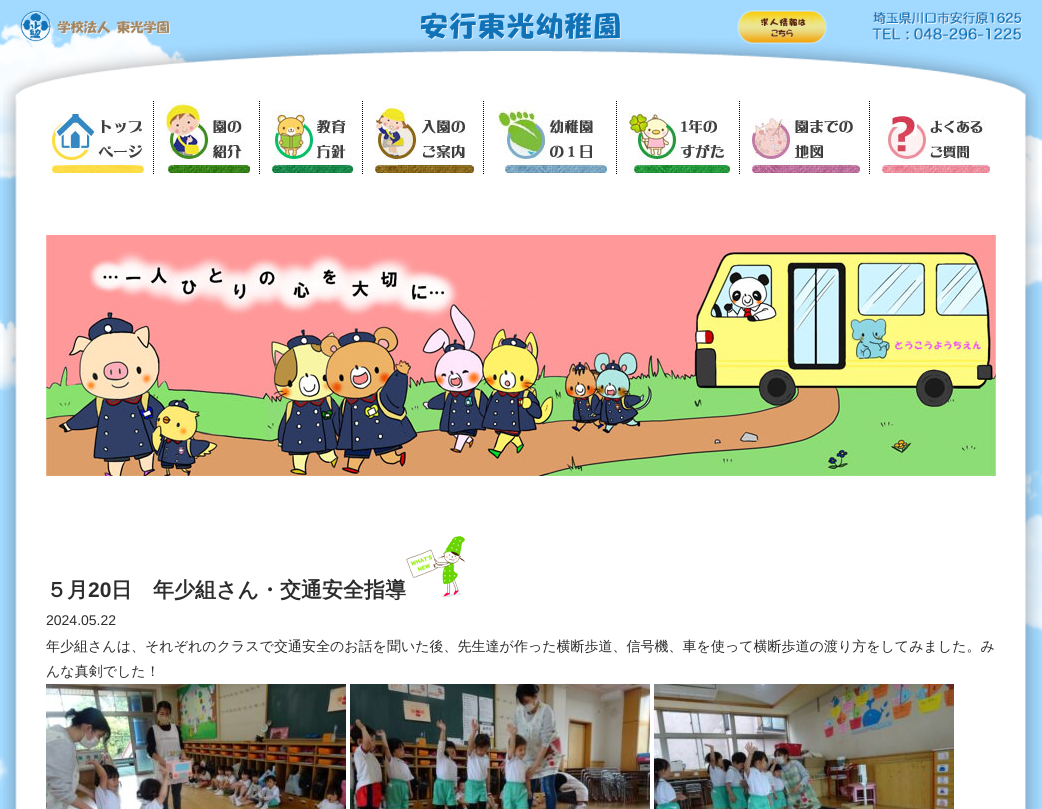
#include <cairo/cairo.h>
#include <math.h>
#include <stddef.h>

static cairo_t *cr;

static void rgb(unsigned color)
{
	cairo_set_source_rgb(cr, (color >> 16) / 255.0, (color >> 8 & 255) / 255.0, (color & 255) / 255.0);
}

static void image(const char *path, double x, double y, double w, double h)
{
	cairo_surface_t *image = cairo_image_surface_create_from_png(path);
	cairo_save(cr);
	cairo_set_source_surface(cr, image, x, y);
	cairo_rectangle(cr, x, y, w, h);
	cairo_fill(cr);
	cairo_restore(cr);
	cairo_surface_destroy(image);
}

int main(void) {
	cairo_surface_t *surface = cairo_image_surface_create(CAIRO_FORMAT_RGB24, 1042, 809);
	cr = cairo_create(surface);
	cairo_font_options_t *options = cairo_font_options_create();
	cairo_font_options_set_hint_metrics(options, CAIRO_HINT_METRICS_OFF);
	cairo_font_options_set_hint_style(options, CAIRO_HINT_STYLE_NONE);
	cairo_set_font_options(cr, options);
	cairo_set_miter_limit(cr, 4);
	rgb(0xa2d9ff);
	cairo_paint(cr);
	image("img/1.png", 0, 20, 1042, 767);
	image("img/2.png", 3, 38, 1035, 167);
	image("img/3.png", 20, 10, 150, 32);
	image("img/4.png", 421, 12, 200, 28);
	image("img/5.png", 737, 10, 90, 34);
	image("img/6.png", 872, 12, 150, 29);
	cairo_new_path(cr);
	cairo_move_to(cr, 153.5, 101);
	cairo_line_to(cr, 153.5, 175);
	rgb(0x000000);
	cairo_set_line_width(cr, 1);
	cairo_set_dash(cr, (double[]){1, 1}, 2, 0);
	cairo_stroke(cr);
	image("img/7.png", 52, 112, 92, 61);
	cairo_new_path(cr);
	cairo_move_to(cr, 259.5, 101);
	cairo_line_to(cr, 259.5, 175);
	cairo_stroke(cr);
	image("img/8.png", 166, 101, 84, 72);
	cairo_new_path(cr);
	cairo_move_to(cr, 362.5, 101);
	cairo_line_to(cr, 362.5, 175);
	cairo_stroke(cr);
	image("img/9.png", 272, 110, 81, 63);
	cairo_new_path(cr);
	cairo_move_to(cr, 483.5, 101);
	cairo_line_to(cr, 483.5, 175);
	cairo_stroke(cr);
	image("img/10.png", 375, 105, 99, 68);
	cairo_new_path(cr);
	cairo_move_to(cr, 616.5, 101);
	cairo_line_to(cr, 616.5, 175);
	cairo_stroke(cr);
	image("img/11.png", 496, 105, 111, 68);
	cairo_new_path(cr);
	cairo_move_to(cr, 739.5, 101);
	cairo_line_to(cr, 739.5, 175);
	cairo_stroke(cr);
	image("img/12.png", 629, 110, 101, 63);
	cairo_new_path(cr);
	cairo_move_to(cr, 869.5, 101);
	cairo_line_to(cr, 869.5, 175);
	cairo_stroke(cr);
	image("img/13.png", 752, 117, 108, 56);
	image("img/14.png", 882, 116, 108, 57);
	image("img/15.png", 3, 205, 1036, 604);
	image("img/16.png", 46, 235, 950, 241);
	image("img/17.png", 406, 536, 59, 61);
	image("img/18.png", 46, 684, 300, 125);
	image("img/19.png", 350, 684, 300, 125);
	image("img/20.png", 654, 684, 300, 125);
	cairo_select_font_face(cr, "WenQuanYi Zen Hei", CAIRO_FONT_SLANT_NORMAL, CAIRO_FONT_WEIGHT_BOLD);
	cairo_set_font_size(cr, 21);
	rgb(0x2c2c2c);
	cairo_move_to(cr, 46, 597);
	cairo_show_text(cr, "５月");
	cairo_select_font_face(cr, "Liberation Sans", CAIRO_FONT_SLANT_NORMAL, CAIRO_FONT_WEIGHT_BOLD);
	cairo_move_to(cr, 88, 597);
	cairo_show_text(cr, "20");
	cairo_select_font_face(cr, "WenQuanYi Zen Hei", CAIRO_FONT_SLANT_NORMAL, CAIRO_FONT_WEIGHT_BOLD);
	cairo_move_to(cr, 111, 597);
	cairo_show_text(cr, "日　年少組さん・交通安全指導");
	cairo_select_font_face(cr, "Liberation Sans", CAIRO_FONT_SLANT_NORMAL, CAIRO_FONT_WEIGHT_NORMAL);
	cairo_set_font_size(cr, 14);
	cairo_move_to(cr, 46, 625);
	cairo_show_text(cr, "2024.05.22");
	cairo_select_font_face(cr, "WenQuanYi Zen Hei Medium", CAIRO_FONT_SLANT_NORMAL, CAIRO_FONT_WEIGHT_NORMAL);
	cairo_move_to(cr, 46, 651);
	cairo_show_text(cr, "年少組さんは、それぞれのクラスで交通安全のお話を聞いた後、先生達が作った横断歩道、信号機、車を使って横断歩道の渡り方をしてみました。み");
	cairo_move_to(cr, 46, 676);
	cairo_show_text(cr, "んな真剣でした！");
	cairo_surface_write_to_png(surface, "page.png");
	cairo_font_options_destroy(options);
	cairo_destroy(cr);
	cairo_surface_destroy(surface);
	return 0;
}
